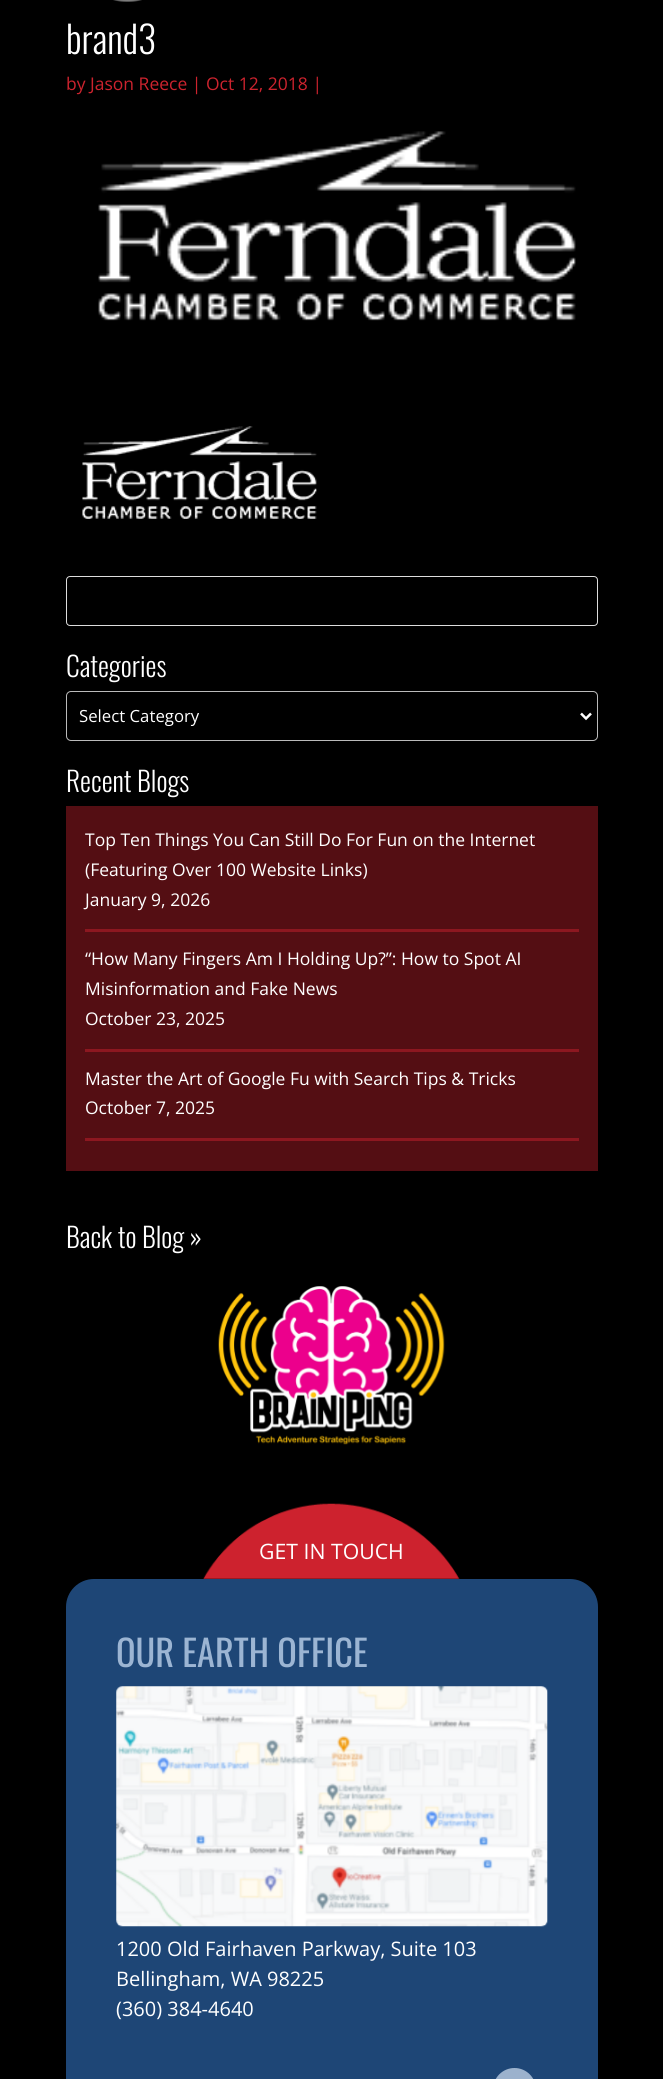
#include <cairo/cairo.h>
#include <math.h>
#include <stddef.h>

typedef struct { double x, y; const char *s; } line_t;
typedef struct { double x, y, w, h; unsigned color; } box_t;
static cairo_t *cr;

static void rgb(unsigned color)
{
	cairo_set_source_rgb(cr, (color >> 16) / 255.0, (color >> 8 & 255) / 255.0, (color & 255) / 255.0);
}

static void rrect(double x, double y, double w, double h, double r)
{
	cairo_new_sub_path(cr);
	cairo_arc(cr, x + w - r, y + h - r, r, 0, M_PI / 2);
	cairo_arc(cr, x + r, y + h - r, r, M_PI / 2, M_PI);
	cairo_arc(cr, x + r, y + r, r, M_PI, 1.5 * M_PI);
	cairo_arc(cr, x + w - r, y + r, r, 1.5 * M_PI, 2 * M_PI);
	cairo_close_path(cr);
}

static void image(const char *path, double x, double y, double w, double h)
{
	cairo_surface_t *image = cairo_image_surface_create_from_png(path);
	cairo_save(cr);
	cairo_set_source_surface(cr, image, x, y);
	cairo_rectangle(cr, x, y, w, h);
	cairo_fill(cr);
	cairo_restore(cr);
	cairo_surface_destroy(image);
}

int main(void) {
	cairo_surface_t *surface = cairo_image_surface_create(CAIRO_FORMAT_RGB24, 663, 2079);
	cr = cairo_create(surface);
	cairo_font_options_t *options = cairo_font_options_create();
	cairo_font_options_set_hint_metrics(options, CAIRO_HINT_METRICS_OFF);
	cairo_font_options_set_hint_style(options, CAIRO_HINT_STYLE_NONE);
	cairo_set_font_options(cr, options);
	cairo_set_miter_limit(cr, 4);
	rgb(0x000000);
	cairo_paint(cr);
	image("img/1.png", 113, 0, 29, 2);
	image("img/2.png", 98, 131, 478, 190);
	image("img/3.png", 82, 426, 235, 93);
	rrect(66.5, 576.5, 531, 49, 3.5);
	rgb(0xdddddd);
	cairo_set_line_width(cr, 1);
	cairo_stroke(cr);
	rrect(66.5, 691.5, 531, 49, 4.5);
	rgb(0xbbbbbb);
	cairo_stroke(cr);
	cairo_new_path(cr);
	cairo_move_to(cr, 581, 713.5);
	cairo_line_to(cr, 586, 718.5);
	cairo_line_to(cr, 591, 713.5);
	rgb(0xffffff);
	cairo_set_line_width(cr, 2.5);
	cairo_stroke(cr);
	{
		static const box_t items[] = {
			{66, 806, 532, 365, 0x540e13},
			{85, 929, 494, 3, 0x8d1720},
			{85, 1049, 494, 3, 0x8d1720},
			{85, 1138, 494, 3, 0x8d1720},
		};
		for (size_t i = 0; i < sizeof items / sizeof *items; i++) {
			rgb(items[i].color);
			cairo_rectangle(cr, items[i].x, items[i].y, items[i].w, items[i].h);
			cairo_fill(cr);
		}
	}
	image("img/4.png", 218, 1286, 227, 159);
	image("img/5.png", 203, 1503, 257, 76);
	rgb(0x1e4676);
	cairo_new_path(cr);
	cairo_move_to(cr, 94, 1579);
	cairo_line_to(cr, 570, 1579);
	cairo_curve_to(cr, 585.5, 1579, 598, 1591.5, 598, 1607);
	cairo_line_to(cr, 598, 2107);
	cairo_line_to(cr, 66, 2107);
	cairo_line_to(cr, 66, 1607);
	cairo_curve_to(cr, 66, 1591.5, 78.5, 1579, 94, 1579);
	cairo_close_path(cr);
	cairo_fill(cr);
	image("img/6.png", 116, 1686, 432, 241);
	rgb(0x9cb2cd);
	rrect(493, 2068, 43, 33, 21.5);
	cairo_fill(cr);
	cairo_select_font_face(cr, "Oswald Light", CAIRO_FONT_SLANT_NORMAL, CAIRO_FONT_WEIGHT_NORMAL);
	cairo_set_font_size(cr, 37.5);
	rgb(0xffffff);
	cairo_move_to(cr, 66, 54);
	cairo_show_text(cr, "brand3");
	cairo_select_font_face(cr, "Open Sans", CAIRO_FONT_SLANT_NORMAL, CAIRO_FONT_WEIGHT_NORMAL);
	cairo_set_font_size(cr, 17.5);
	rgb(0xcd232e);
	cairo_move_to(cr, 66, 90);
	cairo_show_text(cr, "by Jason Reece | Oct 12, 2018 |");
	cairo_select_font_face(cr, "Oswald Light", CAIRO_FONT_SLANT_NORMAL, CAIRO_FONT_WEIGHT_NORMAL);
	cairo_set_font_size(cr, 27.5);
	rgb(0xffffff);
	cairo_move_to(cr, 66, 677);
	cairo_show_text(cr, "Categories");
	cairo_select_font_face(cr, "Open Sans", CAIRO_FONT_SLANT_NORMAL, CAIRO_FONT_WEIGHT_NORMAL);
	cairo_set_font_size(cr, 16.75);
	cairo_move_to(cr, 79, 722);
	cairo_show_text(cr, "Select Category");
	cairo_select_font_face(cr, "Oswald Light", CAIRO_FONT_SLANT_NORMAL, CAIRO_FONT_WEIGHT_NORMAL);
	cairo_set_font_size(cr, 27.5);
	cairo_move_to(cr, 66, 792);
	cairo_show_text(cr, "Recent Blogs");
	cairo_select_font_face(cr, "Open Sans", CAIRO_FONT_SLANT_NORMAL, CAIRO_FONT_WEIGHT_NORMAL);
	cairo_set_font_size(cr, 17.5);
	{
		static const line_t items[] = {
			{85, 846, "Top Ten Things You Can Still Do For Fun on the Internet"},
			{85, 876, "(Featuring Over 100 Website Links)"},
			{85, 906, "January 9, 2026"},
			{85, 965, "“How Many Fingers Am I Holding Up?”: How to Spot AI"},
			{85, 995, "Misinformation and Fake News"},
			{85, 1025, "October 23, 2025"},
			{85, 1085, "Master the Art of Google Fu with Search Tips & Tricks"},
			{85, 1114, "October 7, 2025"},
		};
		for (size_t i = 0; i < sizeof items / sizeof *items; i++) {
			cairo_move_to(cr, items[i].x, items[i].y);
			cairo_show_text(cr, items[i].s);
		}
	}
	cairo_select_font_face(cr, "Oswald Light", CAIRO_FONT_SLANT_NORMAL, CAIRO_FONT_WEIGHT_NORMAL);
	cairo_set_font_size(cr, 27.5);
	cairo_move_to(cr, 66, 1248);
	cairo_show_text(cr, "Back to Blog »");
	cairo_select_font_face(cr, "Open Sans", CAIRO_FONT_SLANT_NORMAL, CAIRO_FONT_WEIGHT_NORMAL);
	cairo_set_font_size(cr, 21.25);
	cairo_move_to(cr, 259, 1559);
	cairo_show_text(cr, "GET IN TOUCH");
	cairo_select_font_face(cr, "Oswald", CAIRO_FONT_SLANT_NORMAL, CAIRO_FONT_WEIGHT_NORMAL);
	cairo_set_font_size(cr, 36.25);
	rgb(0x9cb5d3);
	cairo_move_to(cr, 116, 1667);
	cairo_show_text(cr, "OUR EARTH OFFICE");
	cairo_select_font_face(cr, "Open Sans", CAIRO_FONT_SLANT_NORMAL, CAIRO_FONT_WEIGHT_NORMAL);
	cairo_set_font_size(cr, 20);
	rgb(0xffffff);
	{
		static const line_t items[] = {
			{116, 1956, "1200 Old Fairhaven Parkway, Suite 103"},
			{116, 1986, "Bellingham, WA 98225"},
			{116, 2016, "(360) 384-4640"},
		};
		for (size_t i = 0; i < sizeof items / sizeof *items; i++) {
			cairo_move_to(cr, items[i].x, items[i].y);
			cairo_show_text(cr, items[i].s);
		}
	}
	cairo_surface_write_to_png(surface, "page.png");
	cairo_font_options_destroy(options);
	cairo_destroy(cr);
	cairo_surface_destroy(surface);
	return 0;
}
